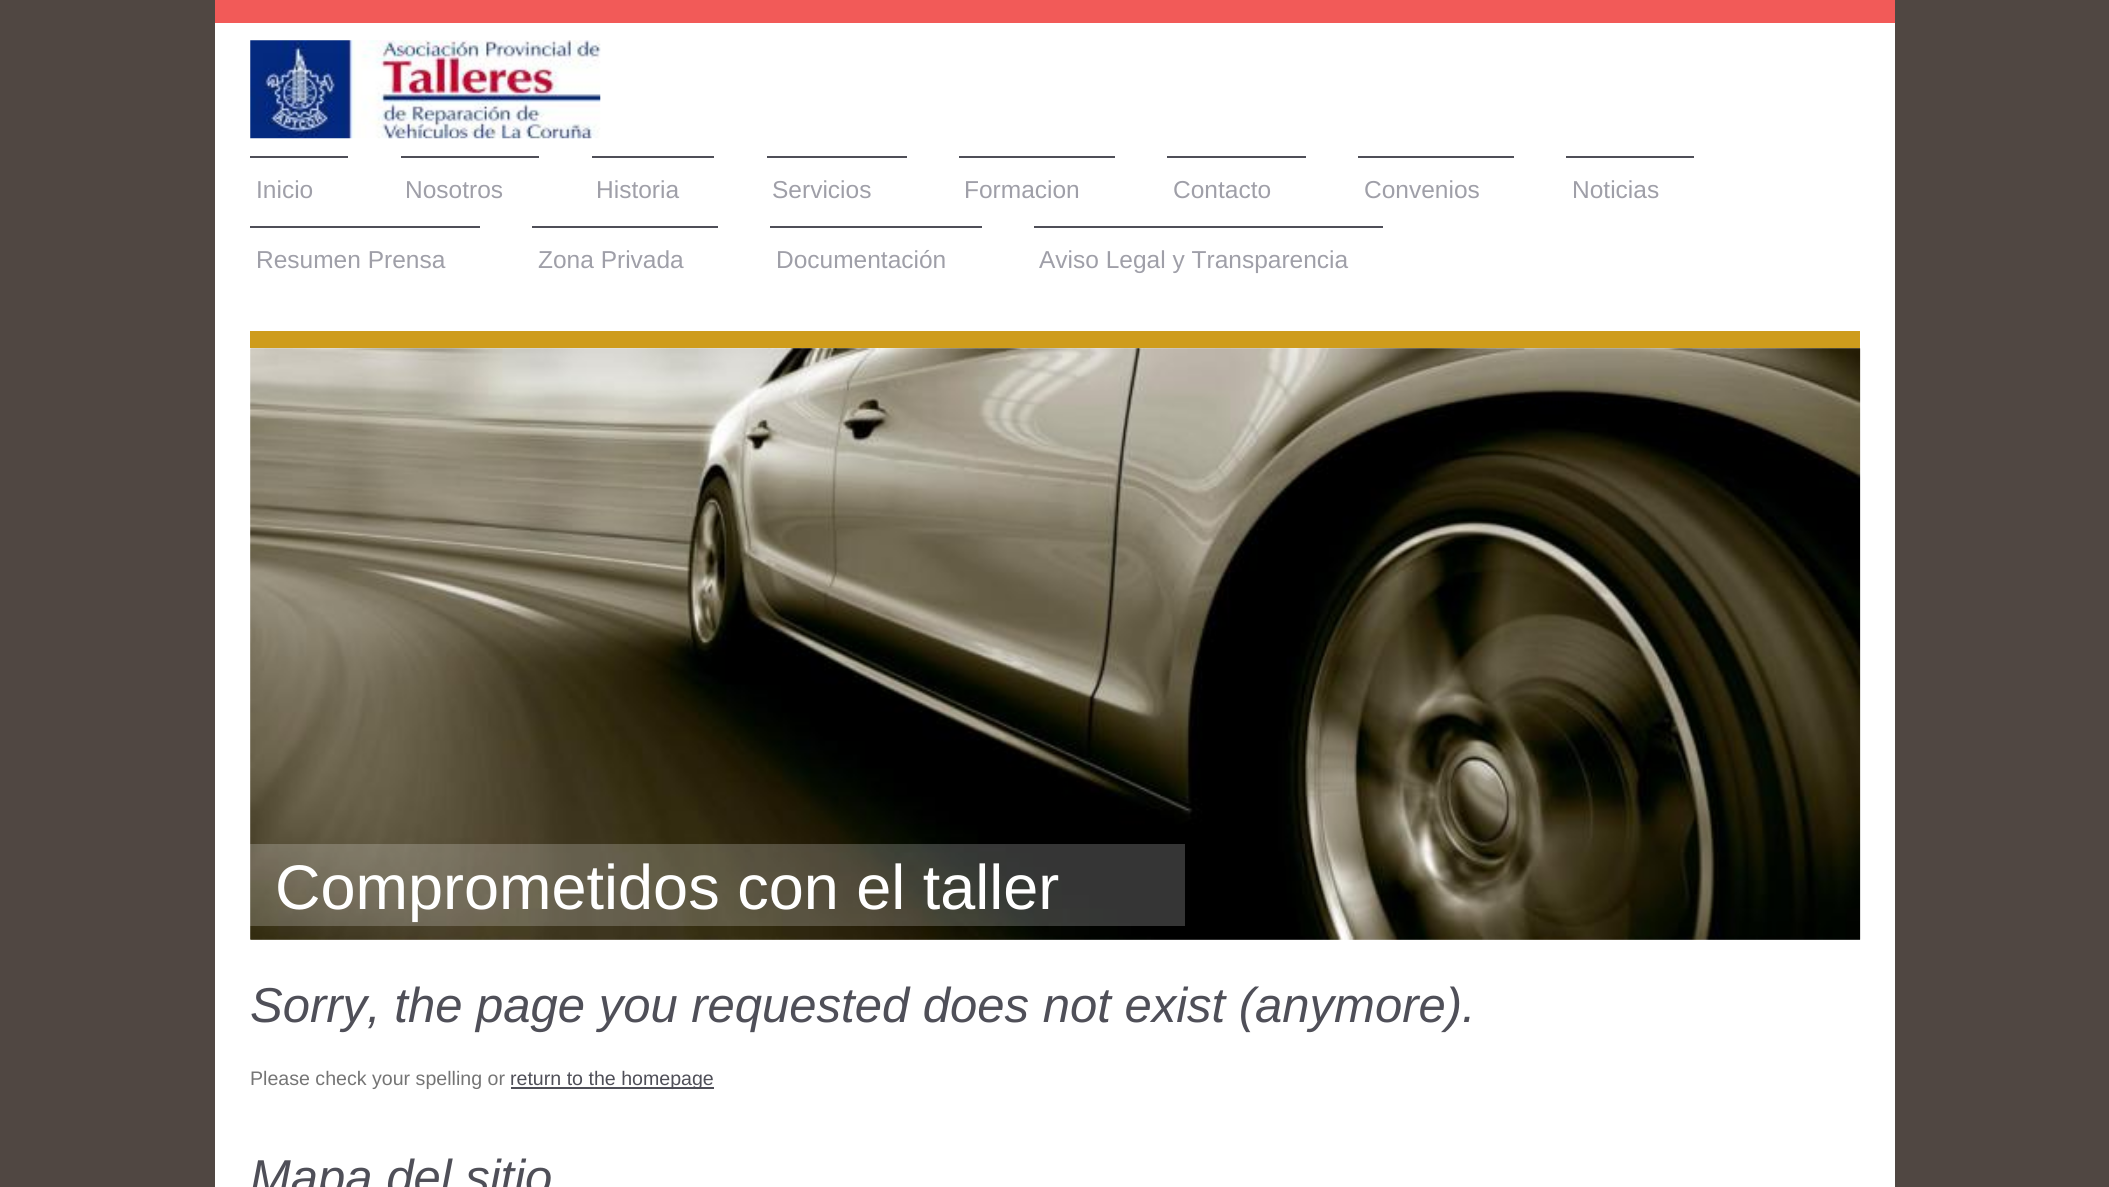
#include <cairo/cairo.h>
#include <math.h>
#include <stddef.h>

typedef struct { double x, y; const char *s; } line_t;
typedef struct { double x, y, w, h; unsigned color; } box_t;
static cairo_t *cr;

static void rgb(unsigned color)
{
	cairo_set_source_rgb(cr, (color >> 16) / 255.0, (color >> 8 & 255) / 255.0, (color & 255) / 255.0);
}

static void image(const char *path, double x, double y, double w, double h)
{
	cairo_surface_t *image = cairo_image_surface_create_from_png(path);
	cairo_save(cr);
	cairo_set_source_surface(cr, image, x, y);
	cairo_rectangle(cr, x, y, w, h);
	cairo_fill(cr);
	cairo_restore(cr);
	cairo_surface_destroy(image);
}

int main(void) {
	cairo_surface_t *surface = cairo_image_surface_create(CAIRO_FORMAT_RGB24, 2109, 1187);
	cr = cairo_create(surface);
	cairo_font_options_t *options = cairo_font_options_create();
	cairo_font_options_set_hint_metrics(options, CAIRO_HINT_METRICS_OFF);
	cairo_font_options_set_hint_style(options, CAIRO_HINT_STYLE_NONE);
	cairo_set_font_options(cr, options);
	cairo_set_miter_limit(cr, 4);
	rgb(0x504742);
	cairo_paint(cr);
	rgb(0xffffff);
	cairo_rectangle(cr, 215, 23, 1680, 1164);
	cairo_fill(cr);
	rgb(0xf25a58);
	cairo_rectangle(cr, 215, 0, 1680, 23);
	cairo_fill(cr);
	image("img/1.png", 250, 40, 351, 99);
	{
		static const box_t items[] = {
			{250, 156, 98, 2, 0x4f4f58},
			{401, 156, 138, 2, 0x4f4f58},
			{592, 156, 122, 2, 0x4f4f58},
			{767, 156, 140, 2, 0x4f4f58},
			{959, 156, 156, 2, 0x4f4f58},
			{1167, 156, 139, 2, 0x4f4f58},
			{1358, 156, 156, 2, 0x4f4f58},
			{1566, 156, 128, 2, 0x4f4f58},
			{250, 226, 230, 2, 0x4f4f58},
			{532, 226, 186, 2, 0x4f4f58},
			{770, 226, 212, 2, 0x4f4f58},
			{1034, 226, 349, 2, 0x4f4f58},
			{250, 331, 1610, 17, 0xce9c1c},
		};
		for (size_t i = 0; i < sizeof items / sizeof *items; i++) {
			rgb(items[i].color);
			cairo_rectangle(cr, items[i].x, items[i].y, items[i].w, items[i].h);
			cairo_fill(cr);
		}
	}
	image("img/2.png", 250, 348, 1611, 592);
	image("img/3.png", 250, 348, 1611, 592);
	cairo_set_source_rgba(cr, 1, 1, 1, 0.21);
	cairo_rectangle(cr, 250, 844, 935, 82);
	cairo_fill(cr);
	rgb(0x4f4f58);
	cairo_rectangle(cr, 511, 1087, 203, 2);
	cairo_fill(cr);
	cairo_select_font_face(cr, "Liberation Sans", CAIRO_FONT_SLANT_NORMAL, CAIRO_FONT_WEIGHT_NORMAL);
	cairo_set_font_size(cr, 24.5);
	rgb(0x9f9fa8);
	{
		static const line_t items[] = {
			{256, 198, "Inicio"},
			{405, 198, "Nosotros"},
			{596, 198, "Historia"},
			{772, 198, "Servicios"},
			{964, 198, "Formacion"},
			{1173, 198, "Contacto"},
			{1364, 198, "Convenios"},
			{1572, 198, "Noticias"},
			{256, 268, "Resumen Prensa"},
			{538, 268, "Zona Privada"},
			{776, 268, "Documentación"},
			{1039, 268, "Aviso Legal y Transparencia"},
		};
		for (size_t i = 0; i < sizeof items / sizeof *items; i++) {
			cairo_move_to(cr, items[i].x, items[i].y);
			cairo_show_text(cr, items[i].s);
		}
	}
	cairo_set_font_size(cr, 63);
	rgb(0xffffff);
	cairo_move_to(cr, 275, 909);
	cairo_show_text(cr, "Comprometidos con el taller");
	cairo_select_font_face(cr, "Liberation Sans", CAIRO_FONT_SLANT_ITALIC, CAIRO_FONT_WEIGHT_NORMAL);
	cairo_set_font_size(cr, 49);
	rgb(0x4f4f58);
	cairo_move_to(cr, 250, 1022);
	cairo_show_text(cr, "Sorry, the page you requested does not exist (anymore).");
	cairo_select_font_face(cr, "Liberation Sans", CAIRO_FONT_SLANT_NORMAL, CAIRO_FONT_WEIGHT_NORMAL);
	cairo_set_font_size(cr, 19.6);
	rgb(0x757575);
	cairo_move_to(cr, 250, 1085);
	cairo_show_text(cr, "Please check your spelling or");
	rgb(0x4f4f58);
	cairo_move_to(cr, 510, 1085);
	cairo_show_text(cr, "return to the homepage");
	cairo_select_font_face(cr, "Liberation Sans", CAIRO_FONT_SLANT_ITALIC, CAIRO_FONT_WEIGHT_NORMAL);
	cairo_set_font_size(cr, 49);
	cairo_move_to(cr, 250, 1194);
	cairo_show_text(cr, "Mapa del sitio");
	cairo_surface_write_to_png(surface, "page.png");
	cairo_font_options_destroy(options);
	cairo_destroy(cr);
	cairo_surface_destroy(surface);
	return 0;
}
